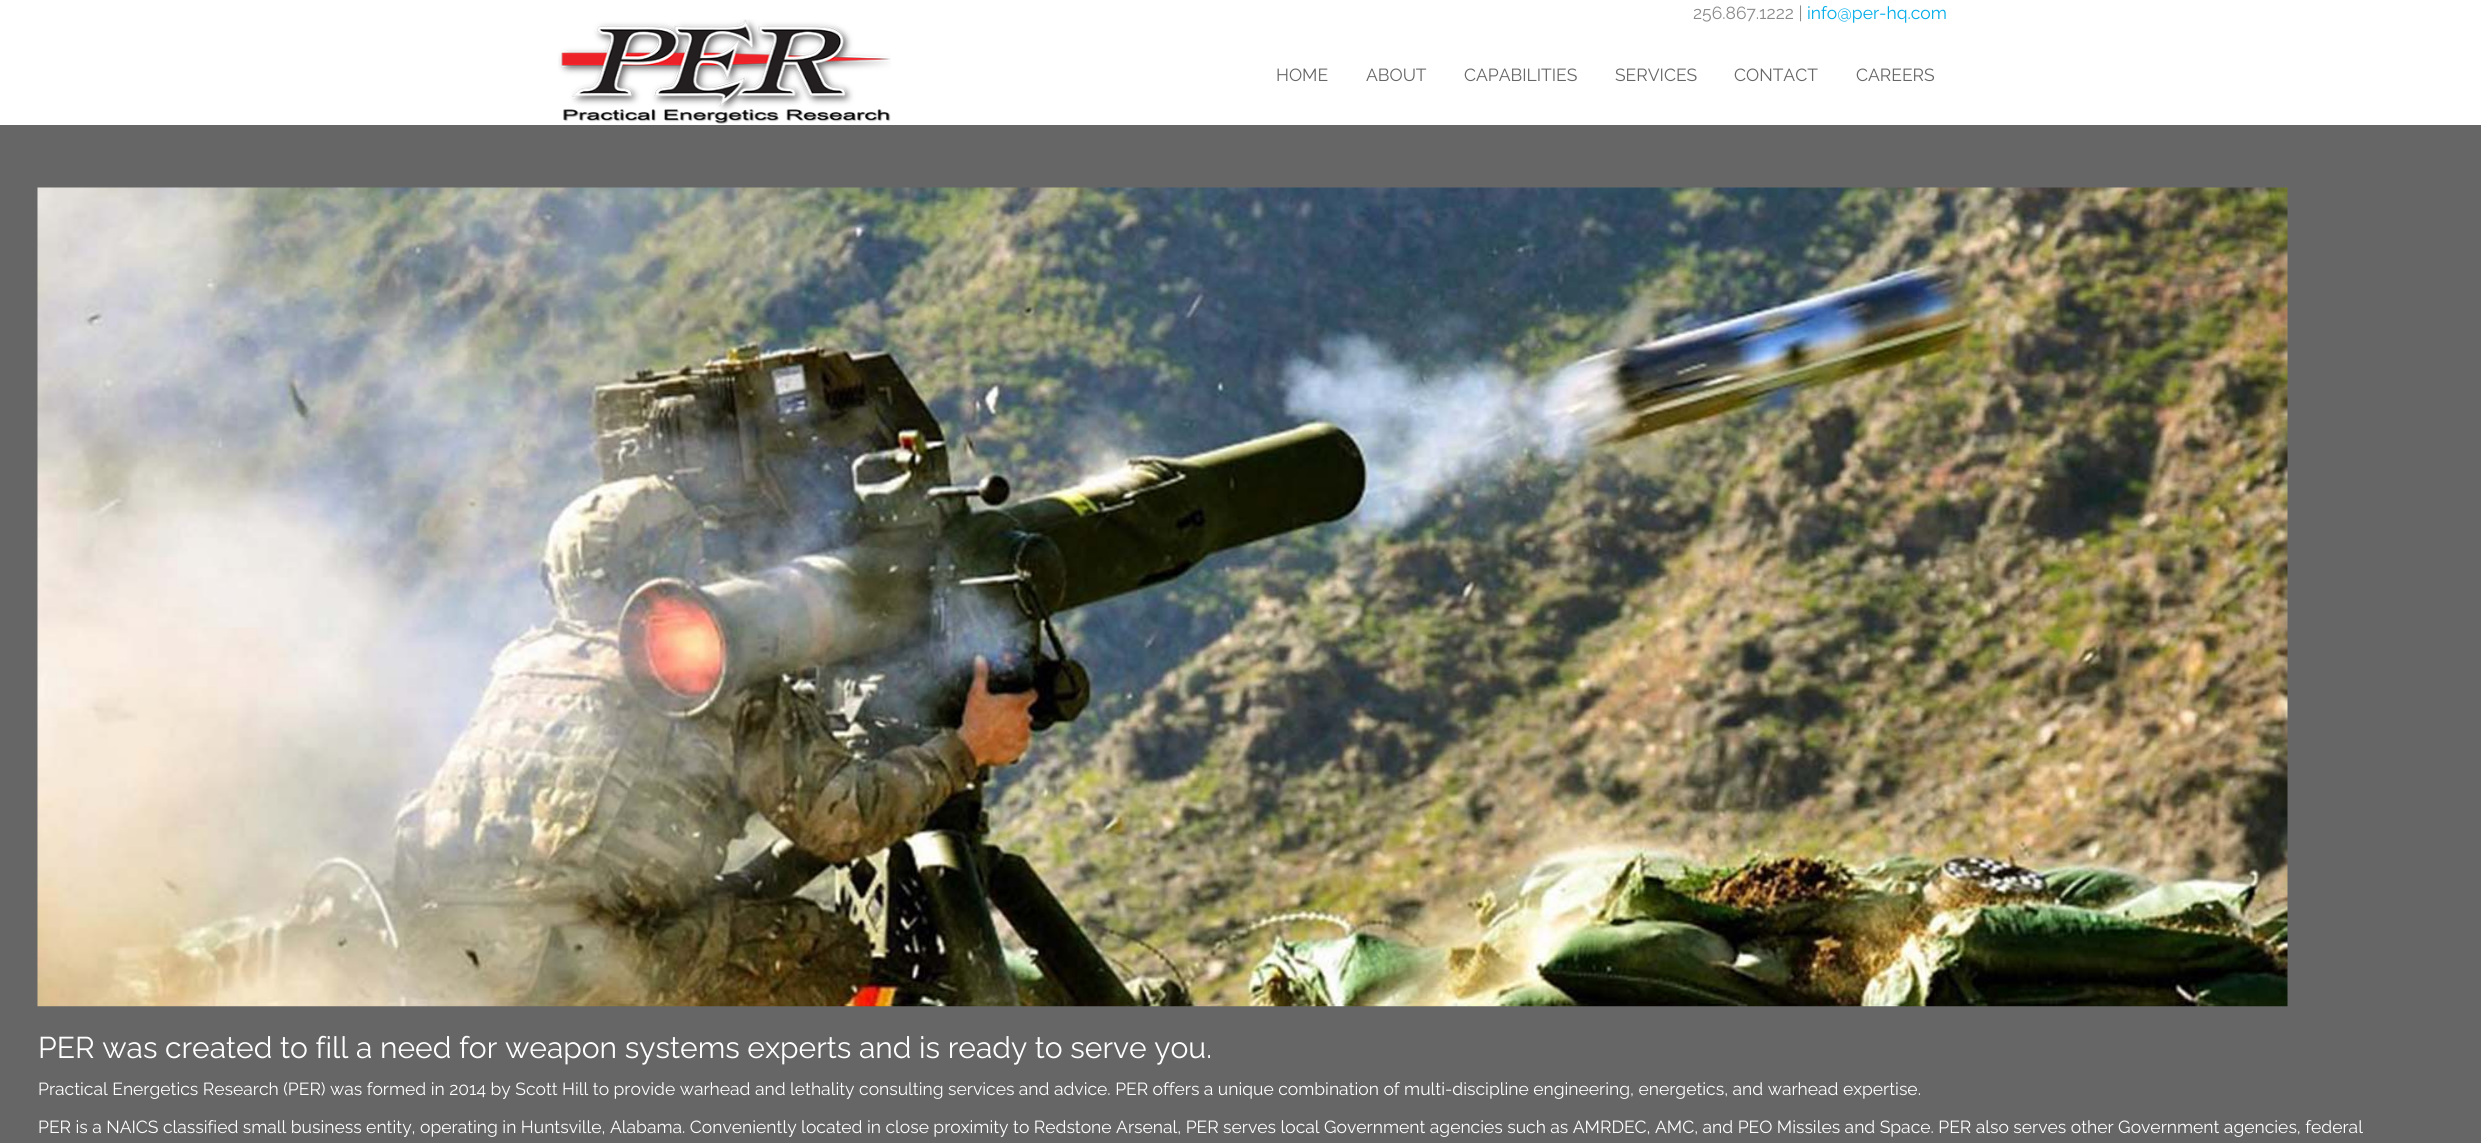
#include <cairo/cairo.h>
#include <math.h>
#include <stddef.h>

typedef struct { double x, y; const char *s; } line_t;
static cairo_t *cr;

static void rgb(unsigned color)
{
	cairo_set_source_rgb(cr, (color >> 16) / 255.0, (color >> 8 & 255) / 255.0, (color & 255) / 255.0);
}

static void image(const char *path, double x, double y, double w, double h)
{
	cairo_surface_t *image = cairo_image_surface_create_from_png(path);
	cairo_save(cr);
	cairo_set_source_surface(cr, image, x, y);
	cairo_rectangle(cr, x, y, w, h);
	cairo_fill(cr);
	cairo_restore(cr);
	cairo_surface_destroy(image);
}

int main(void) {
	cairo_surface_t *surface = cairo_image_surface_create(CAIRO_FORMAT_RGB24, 2481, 1143);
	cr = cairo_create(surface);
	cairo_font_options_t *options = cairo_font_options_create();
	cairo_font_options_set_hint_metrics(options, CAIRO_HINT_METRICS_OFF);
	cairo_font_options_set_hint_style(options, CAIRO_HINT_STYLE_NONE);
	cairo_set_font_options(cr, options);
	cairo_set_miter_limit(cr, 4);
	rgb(0x666666);
	cairo_paint(cr);
	rgb(0xffffff);
	cairo_rectangle(cr, 0, 0, 2481, 125);
	cairo_fill(cr);
	image("img/1.png", 558, 19, 333, 105);
	image("img/2.png", 37, 187, 2251, 820);
	cairo_select_font_face(cr, "Raleway", CAIRO_FONT_SLANT_NORMAL, CAIRO_FONT_WEIGHT_NORMAL);
	cairo_set_font_size(cr, 17.5);
	rgb(0x8a8a8a);
	cairo_move_to(cr, 1693, 19);
	cairo_show_text(cr, "256.867.1222 |");
	rgb(0x00ace9);
	cairo_move_to(cr, 1807, 19);
	cairo_show_text(cr, "info@per-hq.com");
	rgb(0x666666);
	{
		static const line_t items[] = {
			{1276, 81, "HOME"},
			{1366, 81, "ABOUT"},
			{1464, 81, "CAPABILITIES"},
			{1615, 81, "SERVICES"},
			{1734, 81, "CONTACT"},
			{1856, 81, "CAREERS"},
		};
		for (size_t i = 0; i < sizeof items / sizeof *items; i++) {
			cairo_move_to(cr, items[i].x, items[i].y);
			cairo_show_text(cr, items[i].s);
		}
	}
	cairo_set_font_size(cr, 30);
	rgb(0xffffff);
	cairo_move_to(cr, 38, 1058);
	cairo_show_text(cr, "PER was created to fill a need for weapon systems experts and is ready to serve you.");
	cairo_set_font_size(cr, 17.5);
	cairo_move_to(cr, 38, 1095);
	cairo_show_text(cr, "Practical Energetics Research (PER) was formed in 2014 by Scott Hill to provide warhead and lethality consulting services and advice. PER offers a unique combination of multi-discipline engineering, energetics, and warhead expertise.");
	cairo_move_to(cr, 38, 1133);
	cairo_show_text(cr, "PER is a NAICS classified small business entity, operating in Huntsville, Alabama. Conveniently located in close proximity to Redstone Arsenal, PER serves local Government agencies such as AMRDEC, AMC, and PEO Missiles and Space. PER also serves other Government agencies, federal");
	cairo_surface_write_to_png(surface, "page.png");
	cairo_font_options_destroy(options);
	cairo_destroy(cr);
	cairo_surface_destroy(surface);
	return 0;
}
